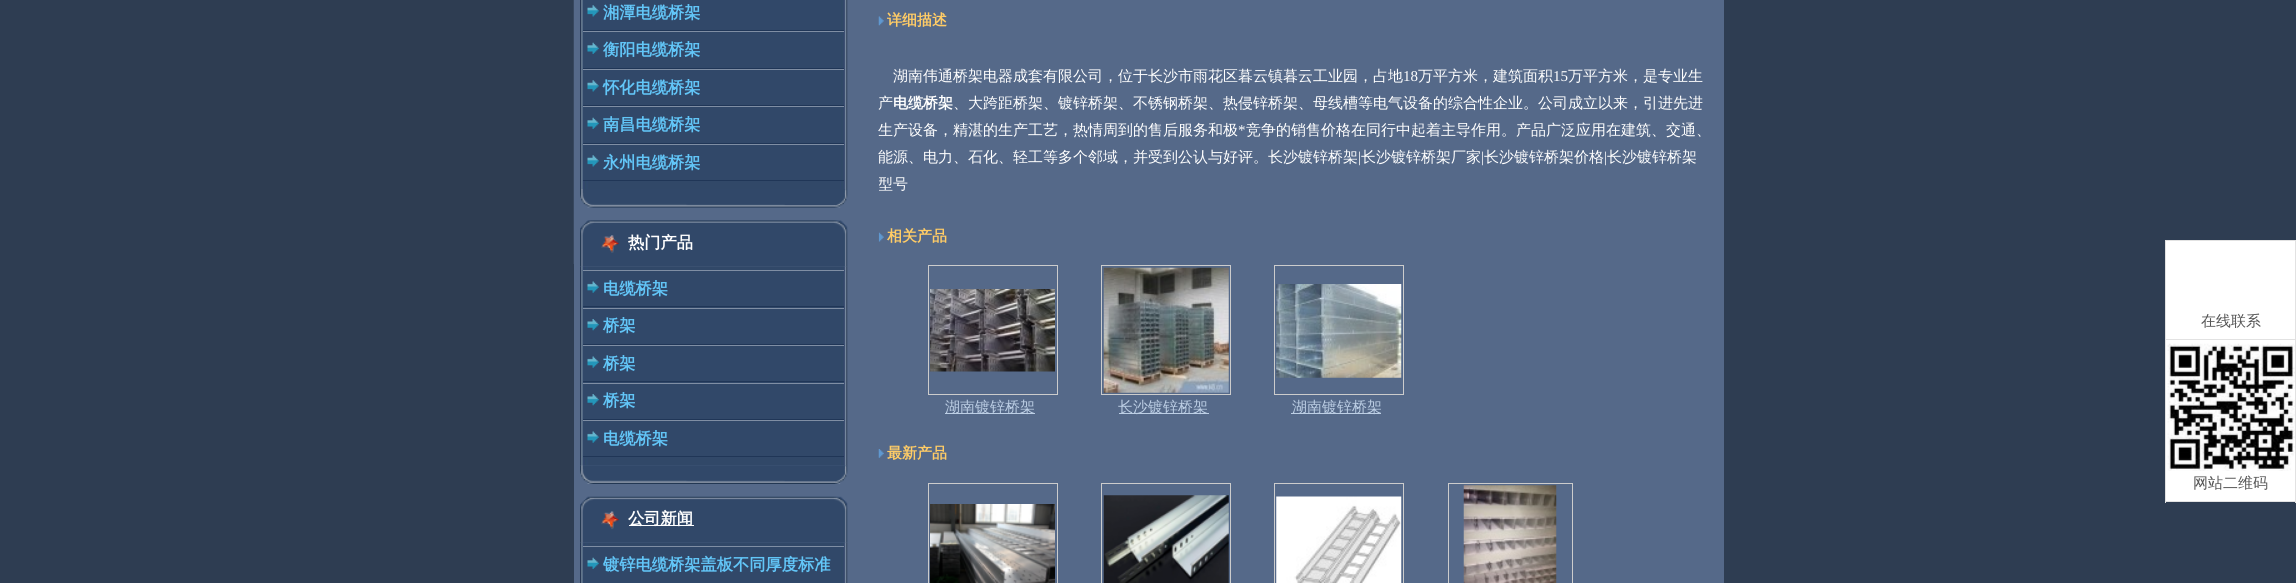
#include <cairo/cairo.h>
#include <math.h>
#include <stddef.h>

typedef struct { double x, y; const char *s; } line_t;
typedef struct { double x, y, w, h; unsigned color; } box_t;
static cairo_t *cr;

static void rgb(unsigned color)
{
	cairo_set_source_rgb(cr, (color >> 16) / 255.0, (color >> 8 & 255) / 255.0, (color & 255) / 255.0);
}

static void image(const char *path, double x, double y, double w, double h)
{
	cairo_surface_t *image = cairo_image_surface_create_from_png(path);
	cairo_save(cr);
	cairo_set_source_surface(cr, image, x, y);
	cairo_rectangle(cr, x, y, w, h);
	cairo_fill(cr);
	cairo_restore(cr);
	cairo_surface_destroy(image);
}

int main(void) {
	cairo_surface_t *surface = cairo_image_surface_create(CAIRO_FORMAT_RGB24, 2296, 583);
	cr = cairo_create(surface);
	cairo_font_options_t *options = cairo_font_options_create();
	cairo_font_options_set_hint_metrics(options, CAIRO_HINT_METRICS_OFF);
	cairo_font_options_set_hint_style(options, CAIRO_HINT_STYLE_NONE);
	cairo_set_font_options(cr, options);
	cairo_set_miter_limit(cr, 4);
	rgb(0x2e3d52);
	cairo_paint(cr);
	rgb(0x556989);
	cairo_rectangle(cr, 574, 0, 1150, 583);
	cairo_fill(cr);
	rgb(0x38485f);
	cairo_rectangle(cr, 573, 0, 1, 264);
	cairo_fill(cr);
	image("img/1.png", 580, 0, 268, 189);
	rgb(0x314869);
	cairo_rectangle(cr, 583, 0, 258, 30);
	cairo_fill(cr);
	image("img/2.png", 587, 5, 12, 12);
	rgb(0x203657);
	cairo_rectangle(cr, 583, 30, 261, 1);
	cairo_fill(cr);
	rgb(0x314869);
	cairo_rectangle(cr, 583, 32, 258, 36);
	cairo_fill(cr);
	image("img/3.png", 587, 42, 12, 12);
	{
		static const box_t items[] = {
			{583, 31, 261, 1, 0x7f8ea4},
			{583, 68, 261, 1, 0x203657},
			{583, 70, 258, 35, 0x314869},
		};
		for (size_t i = 0; i < sizeof items / sizeof *items; i++) {
			rgb(items[i].color);
			cairo_rectangle(cr, items[i].x, items[i].y, items[i].w, items[i].h);
			cairo_fill(cr);
		}
	}
	image("img/2.png", 587, 80, 12, 12);
	{
		static const box_t items[] = {
			{583, 69, 261, 1, 0x7f8ea4},
			{583, 105, 261, 1, 0x203657},
			{583, 107, 258, 36, 0x314869},
		};
		for (size_t i = 0; i < sizeof items / sizeof *items; i++) {
			rgb(items[i].color);
			cairo_rectangle(cr, items[i].x, items[i].y, items[i].w, items[i].h);
			cairo_fill(cr);
		}
	}
	image("img/3.png", 587, 117, 12, 12);
	{
		static const box_t items[] = {
			{583, 106, 261, 1, 0x7f8ea4},
			{583, 143, 261, 1, 0x203657},
			{583, 145, 258, 35, 0x314869},
		};
		for (size_t i = 0; i < sizeof items / sizeof *items; i++) {
			rgb(items[i].color);
			cairo_rectangle(cr, items[i].x, items[i].y, items[i].w, items[i].h);
			cairo_fill(cr);
		}
	}
	image("img/2.png", 587, 155, 12, 12);
	rgb(0x7f8ea4);
	cairo_rectangle(cr, 583, 144, 261, 1);
	cairo_fill(cr);
	rgb(0x203657);
	cairo_rectangle(cr, 583, 180, 261, 1);
	cairo_fill(cr);
	image("img/4.png", 580, 189, 268, 19);
	image("img/5.png", 580, 220, 268, 47);
	image("img/6.png", 580, 266, 268, 200);
	rgb(0x314869);
	cairo_rectangle(cr, 583, 271, 258, 37);
	cairo_fill(cr);
	image("img/7.png", 587, 281, 12, 12);
	{
		static const box_t items[] = {
			{583, 270, 261, 1, 0x7f8ea4},
			{583, 306, 261, 1, 0x203657},
			{583, 309, 258, 35, 0x314869},
		};
		for (size_t i = 0; i < sizeof items / sizeof *items; i++) {
			rgb(items[i].color);
			cairo_rectangle(cr, items[i].x, items[i].y, items[i].w, items[i].h);
			cairo_fill(cr);
		}
	}
	image("img/8.png", 587, 319, 12, 12);
	{
		static const box_t items[] = {
			{583, 308, 261, 1, 0x7f8ea4},
			{583, 344, 261, 1, 0x203657},
			{583, 346, 258, 37, 0x314869},
		};
		for (size_t i = 0; i < sizeof items / sizeof *items; i++) {
			rgb(items[i].color);
			cairo_rectangle(cr, items[i].x, items[i].y, items[i].w, items[i].h);
			cairo_fill(cr);
		}
	}
	image("img/7.png", 587, 356, 12, 12);
	{
		static const box_t items[] = {
			{583, 345, 261, 1, 0x7f8ea4},
			{583, 381, 261, 1, 0x203657},
			{583, 384, 258, 35, 0x314869},
		};
		for (size_t i = 0; i < sizeof items / sizeof *items; i++) {
			rgb(items[i].color);
			cairo_rectangle(cr, items[i].x, items[i].y, items[i].w, items[i].h);
			cairo_fill(cr);
		}
	}
	image("img/8.png", 587, 394, 12, 12);
	{
		static const box_t items[] = {
			{583, 383, 261, 1, 0x7f8ea4},
			{583, 419, 261, 1, 0x203657},
			{583, 421, 258, 37, 0x314869},
		};
		for (size_t i = 0; i < sizeof items / sizeof *items; i++) {
			rgb(items[i].color);
			cairo_rectangle(cr, items[i].x, items[i].y, items[i].w, items[i].h);
			cairo_fill(cr);
		}
	}
	image("img/7.png", 587, 431, 12, 12);
	rgb(0x7f8ea4);
	cairo_rectangle(cr, 583, 420, 261, 1);
	cairo_fill(cr);
	rgb(0x203657);
	cairo_rectangle(cr, 583, 456, 261, 1);
	cairo_fill(cr);
	image("img/9.png", 580, 465, 268, 19);
	image("img/10.png", 580, 496, 268, 47);
	rgb(0xffffff);
	cairo_rectangle(cr, 629, 525, 65, 1);
	cairo_fill(cr);
	image("img/11.png", 580, 543, 268, 40);
	rgb(0x314869);
	cairo_rectangle(cr, 583, 547, 258, 36);
	cairo_fill(cr);
	image("img/3.png", 587, 557, 12, 12);
	rgb(0x7f8ea4);
	cairo_rectangle(cr, 583, 546, 261, 1);
	cairo_fill(cr);
	image("img/12.png", 878, 16, 6, 10);
	image("img/13.png", 878, 232, 6, 10);
	cairo_rectangle(cr, 928.5, 265.5, 129, 129);
	rgb(0xcccccc);
	cairo_set_line_width(cr, 1);
	cairo_stroke(cr);
	image("img/14.png", 930, 289, 125, 83);
	rgb(0xbdcfe5);
	cairo_rectangle(cr, 945, 413, 90, 1);
	cairo_fill(cr);
	cairo_rectangle(cr, 1101.5, 265.5, 129, 129);
	rgb(0xcccccc);
	cairo_stroke(cr);
	image("img/15.png", 1103, 267, 126, 126);
	rgb(0xbdcfe5);
	cairo_rectangle(cr, 1119, 413, 90, 1);
	cairo_fill(cr);
	cairo_rectangle(cr, 1274.5, 265.5, 129, 129);
	rgb(0xcccccc);
	cairo_stroke(cr);
	image("img/16.png", 1276, 284, 126, 94);
	rgb(0xbdcfe5);
	cairo_rectangle(cr, 1291, 413, 90, 1);
	cairo_fill(cr);
	image("img/17.png", 878, 449, 6, 9);
	cairo_rectangle(cr, 928.5, 483.5, 129, 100);
	rgb(0xcccccc);
	cairo_stroke(cr);
	image("img/18.png", 930, 504, 125, 79);
	cairo_rectangle(cr, 1101.5, 483.5, 129, 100);
	cairo_stroke(cr);
	image("img/19.png", 1103, 495, 126, 88);
	cairo_rectangle(cr, 1274.5, 483.5, 129, 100);
	cairo_stroke(cr);
	image("img/20.png", 1276, 496, 126, 87);
	cairo_rectangle(cr, 1448.5, 483.5, 124, 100);
	cairo_stroke(cr);
	image("img/21.png", 1463, 485, 94, 98);
	{
		static const box_t items[] = {
			{2165, 240, 131, 1, 0xe2e2e2},
			{2166, 241, 129, 98, 0xffffff},
			{2295, 241, 1, 262, 0xe2e2e2},
			{2165, 339, 131, 1, 0xe2e2e2},
			{2165, 241, 1, 99, 0xe2e2e2},
			{2166, 340, 129, 161, 0xffffff},
			{2165, 501, 131, 1, 0xe2e2e2},
			{2165, 340, 1, 163, 0xe2e2e2},
		};
		for (size_t i = 0; i < sizeof items / sizeof *items; i++) {
			rgb(items[i].color);
			cairo_rectangle(cr, items[i].x, items[i].y, items[i].w, items[i].h);
			cairo_fill(cr);
		}
	}
	image("img/22.png", 2167, 343, 128, 128);
	cairo_select_font_face(cr, "WenQuanYi Zen Hei", CAIRO_FONT_SLANT_NORMAL, CAIRO_FONT_WEIGHT_BOLD);
	cairo_set_font_size(cr, 16.25);
	rgb(0x62c6f8);
	{
		static const line_t items[] = {
			{603, 18, "湘潭电缆桥架"},
			{603, 55, "衡阳电缆桥架"},
			{603, 93, "怀化电缆桥架"},
			{603, 130, "南昌电缆桥架"},
			{603, 168, "永州电缆桥架"},
		};
		for (size_t i = 0; i < sizeof items / sizeof *items; i++) {
			cairo_move_to(cr, items[i].x, items[i].y);
			cairo_show_text(cr, items[i].s);
		}
	}
	rgb(0xffffff);
	cairo_move_to(cr, 628, 248);
	cairo_show_text(cr, "热门产品");
	rgb(0x62c6f8);
	{
		static const line_t items[] = {
			{603, 294, "电缆桥架"},
			{603, 331, "桥架"},
			{603, 369, "桥架"},
			{603, 406, "桥架"},
			{603, 444, "电缆桥架"},
		};
		for (size_t i = 0; i < sizeof items / sizeof *items; i++) {
			cairo_move_to(cr, items[i].x, items[i].y);
			cairo_show_text(cr, items[i].s);
		}
	}
	rgb(0xffffff);
	cairo_move_to(cr, 628, 524);
	cairo_show_text(cr, "公司新闻");
	rgb(0x62c6f8);
	cairo_move_to(cr, 603, 570);
	cairo_show_text(cr, "镀锌电缆桥架盖板不同厚度标准");
	cairo_set_font_size(cr, 15);
	rgb(0xffcc66);
	cairo_move_to(cr, 887, 25);
	cairo_show_text(cr, "详细描述");
	cairo_select_font_face(cr, "WenQuanYi Zen Hei Medium", CAIRO_FONT_SLANT_NORMAL, CAIRO_FONT_WEIGHT_NORMAL);
	rgb(0xffffff);
	cairo_move_to(cr, 893, 81);
	cairo_show_text(cr, "湖南伟通桥架电器成套有限公司，位于长沙市雨花区暮云镇暮云工业园，占地");
	cairo_select_font_face(cr, "Liberation Serif", CAIRO_FONT_SLANT_NORMAL, CAIRO_FONT_WEIGHT_NORMAL);
	cairo_move_to(cr, 1403, 81);
	cairo_show_text(cr, "18");
	cairo_select_font_face(cr, "WenQuanYi Zen Hei Medium", CAIRO_FONT_SLANT_NORMAL, CAIRO_FONT_WEIGHT_NORMAL);
	cairo_move_to(cr, 1418, 81);
	cairo_show_text(cr, "万平方米，建筑面积");
	cairo_select_font_face(cr, "Liberation Serif", CAIRO_FONT_SLANT_NORMAL, CAIRO_FONT_WEIGHT_NORMAL);
	cairo_move_to(cr, 1553, 81);
	cairo_show_text(cr, "15");
	cairo_select_font_face(cr, "WenQuanYi Zen Hei Medium", CAIRO_FONT_SLANT_NORMAL, CAIRO_FONT_WEIGHT_NORMAL);
	cairo_move_to(cr, 1568, 81);
	cairo_show_text(cr, "万平方米，是专业生");
	cairo_move_to(cr, 878, 108);
	cairo_show_text(cr, "产");
	cairo_select_font_face(cr, "WenQuanYi Zen Hei", CAIRO_FONT_SLANT_NORMAL, CAIRO_FONT_WEIGHT_BOLD);
	cairo_move_to(cr, 893, 108);
	cairo_show_text(cr, "电缆桥架");
	cairo_select_font_face(cr, "WenQuanYi Zen Hei Medium", CAIRO_FONT_SLANT_NORMAL, CAIRO_FONT_WEIGHT_NORMAL);
	cairo_move_to(cr, 953, 108);
	cairo_show_text(cr, "、大跨距桥架、镀锌桥架、不锈钢桥架、热侵锌桥架、母线槽等电气设备的综合性企业。公司成立以来，引进先进");
	cairo_move_to(cr, 878, 135);
	cairo_show_text(cr, "生产设备，精湛的生产工艺，热情周到的售后服务和极");
	cairo_select_font_face(cr, "Liberation Serif", CAIRO_FONT_SLANT_NORMAL, CAIRO_FONT_WEIGHT_NORMAL);
	cairo_move_to(cr, 1238, 135);
	cairo_show_text(cr, "*");
	cairo_select_font_face(cr, "WenQuanYi Zen Hei Medium", CAIRO_FONT_SLANT_NORMAL, CAIRO_FONT_WEIGHT_NORMAL);
	cairo_move_to(cr, 1246, 135);
	cairo_show_text(cr, "竞争的销售价格在同行中起着主导作用。产品广泛应用在建筑、交通、");
	cairo_move_to(cr, 878, 162);
	cairo_show_text(cr, "能源、电力、石化、轻工等多个邻域，并受到公认与好评。长沙镀锌桥架");
	cairo_select_font_face(cr, "Liberation Serif", CAIRO_FONT_SLANT_NORMAL, CAIRO_FONT_WEIGHT_NORMAL);
	cairo_move_to(cr, 1358, 162);
	cairo_show_text(cr, "|");
	cairo_select_font_face(cr, "WenQuanYi Zen Hei Medium", CAIRO_FONT_SLANT_NORMAL, CAIRO_FONT_WEIGHT_NORMAL);
	cairo_move_to(cr, 1361, 162);
	cairo_show_text(cr, "长沙镀锌桥架厂家");
	cairo_select_font_face(cr, "Liberation Serif", CAIRO_FONT_SLANT_NORMAL, CAIRO_FONT_WEIGHT_NORMAL);
	cairo_move_to(cr, 1481, 162);
	cairo_show_text(cr, "|");
	cairo_select_font_face(cr, "WenQuanYi Zen Hei Medium", CAIRO_FONT_SLANT_NORMAL, CAIRO_FONT_WEIGHT_NORMAL);
	cairo_move_to(cr, 1484, 162);
	cairo_show_text(cr, "长沙镀锌桥架价格");
	cairo_select_font_face(cr, "Liberation Serif", CAIRO_FONT_SLANT_NORMAL, CAIRO_FONT_WEIGHT_NORMAL);
	cairo_move_to(cr, 1604, 162);
	cairo_show_text(cr, "|");
	cairo_select_font_face(cr, "WenQuanYi Zen Hei Medium", CAIRO_FONT_SLANT_NORMAL, CAIRO_FONT_WEIGHT_NORMAL);
	cairo_move_to(cr, 1607, 162);
	cairo_show_text(cr, "长沙镀锌桥架");
	cairo_save(cr);
	cairo_rectangle(cr, 879, 64, 832, 135);
	cairo_clip(cr);
	cairo_move_to(cr, 878, 189);
	cairo_show_text(cr, "型号");
	cairo_restore(cr);
	cairo_select_font_face(cr, "WenQuanYi Zen Hei", CAIRO_FONT_SLANT_NORMAL, CAIRO_FONT_WEIGHT_BOLD);
	rgb(0xffcc66);
	cairo_move_to(cr, 887, 241);
	cairo_show_text(cr, "相关产品");
	cairo_select_font_face(cr, "WenQuanYi Zen Hei Medium", CAIRO_FONT_SLANT_NORMAL, CAIRO_FONT_WEIGHT_NORMAL);
	rgb(0xbdcfe5);
	{
		static const line_t items[] = {
			{945, 412, "湖南镀锌桥架"},
			{1118, 412, "长沙镀锌桥架"},
			{1292, 412, "湖南镀锌桥架"},
		};
		for (size_t i = 0; i < sizeof items / sizeof *items; i++) {
			cairo_move_to(cr, items[i].x, items[i].y);
			cairo_show_text(cr, items[i].s);
		}
	}
	cairo_select_font_face(cr, "WenQuanYi Zen Hei", CAIRO_FONT_SLANT_NORMAL, CAIRO_FONT_WEIGHT_BOLD);
	rgb(0xffcc66);
	cairo_move_to(cr, 887, 458);
	cairo_show_text(cr, "最新产品");
	cairo_select_font_face(cr, "WenQuanYi Zen Hei Medium", CAIRO_FONT_SLANT_NORMAL, CAIRO_FONT_WEIGHT_NORMAL);
	rgb(0x555555);
	cairo_move_to(cr, 2201, 326);
	cairo_show_text(cr, "在线联系");
	cairo_move_to(cr, 2193, 488);
	cairo_show_text(cr, "网站二维码");
	cairo_surface_write_to_png(surface, "page.png");
	cairo_font_options_destroy(options);
	cairo_destroy(cr);
	cairo_surface_destroy(surface);
	return 0;
}
